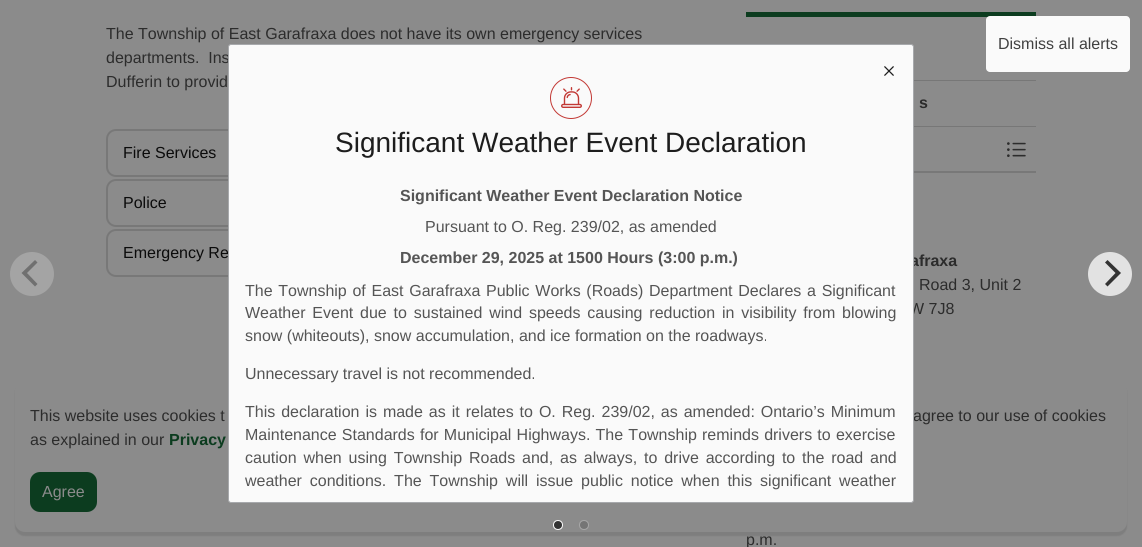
#include <cairo/cairo.h>
#include <math.h>
#include <stddef.h>

typedef struct { double x, y; const char *s; } line_t;
typedef struct { double x, y, w, h; unsigned color; } box_t;
static cairo_t *cr;

static void rgb(unsigned color)
{
	cairo_set_source_rgb(cr, (color >> 16) / 255.0, (color >> 8 & 255) / 255.0, (color & 255) / 255.0);
}

static void tracked(double x, double y, const char *s, double letter, double word)
{
	cairo_move_to(cr, x, y);
	while (*s) {
		char ch[5] = {0};
		int n = 0;
		do ch[n++] = *s++; while ((*s & 0xC0) == 0x80);
		cairo_show_text(cr, ch);
		cairo_rel_move_to(cr, letter + word * (*ch == ' '), 0);
	}
}

static void rrect(double x, double y, double w, double h, double r)
{
	cairo_new_sub_path(cr);
	cairo_arc(cr, x + w - r, y + h - r, r, 0, M_PI / 2);
	cairo_arc(cr, x + r, y + h - r, r, M_PI / 2, M_PI);
	cairo_arc(cr, x + r, y + r, r, M_PI, 1.5 * M_PI);
	cairo_arc(cr, x + w - r, y + r, r, 1.5 * M_PI, 2 * M_PI);
	cairo_close_path(cr);
}

static void soft_shadow(double x, double y, double w, double h, double r, double blur, double alpha)
{
	cairo_push_group_with_content(cr, CAIRO_CONTENT_ALPHA);
	cairo_set_operator(cr, CAIRO_OPERATOR_SOURCE);
	for (int i = 15; i >= -15 && fmin(w, h) + blur * i / 3 > 0; i -= 2) {
		double e = blur * i / 6;
		cairo_set_source_rgba(cr, 0, 0, 0, alpha * erfc((i - 1) / 8.5) / 2);
		rrect(x - e, y - e, w + 2 * e, h + 2 * e, fmax(0, fmin(r + e + blur * .6, fmin(w, h) / 2 + e)));
		cairo_fill(cr);
	}
	cairo_pattern_t *soft = cairo_pop_group(cr);
	cairo_mask(cr, soft);
	cairo_pattern_destroy(soft);
}

static void image(const char *path, double x, double y, double w, double h)
{
	cairo_surface_t *image = cairo_image_surface_create_from_png(path);
	cairo_save(cr);
	cairo_set_source_surface(cr, image, x, y);
	cairo_rectangle(cr, x, y, w, h);
	cairo_fill(cr);
	cairo_restore(cr);
	cairo_surface_destroy(image);
}

int main(void) {
	cairo_surface_t *surface = cairo_image_surface_create(CAIRO_FORMAT_RGB24, 1142, 547);
	cr = cairo_create(surface);
	cairo_font_options_t *options = cairo_font_options_create();
	cairo_font_options_set_hint_metrics(options, CAIRO_HINT_METRICS_OFF);
	cairo_font_options_set_hint_style(options, CAIRO_HINT_STYLE_NONE);
	cairo_set_font_options(cr, options);
	cairo_set_miter_limit(cr, 4);
	rgb(0x8b8b8b);
	cairo_paint(cr);
	rrect(107, 130, 608, 46, 9);
	rgb(0x787878);
	cairo_stroke(cr);
	rrect(107, 180, 608, 46, 9);
	cairo_stroke(cr);
	rrect(107, 230, 608, 46, 9);
	cairo_stroke(cr);
	{
		static const box_t items[] = {
			{746, 12, 290, 5, 0x0c3c1f},
			{914, 80, 122, 1, 0x777777},
			{914, 126, 122, 1, 0x777777},
		};
		for (size_t i = 0; i < sizeof items / sizeof *items; i++) {
			rgb(items[i].color);
			cairo_rectangle(cr, items[i].x, items[i].y, items[i].w, items[i].h);
			cairo_fill(cr);
		}
	}
	image("img/1.png", 1007, 142, 19, 15);
	rgb(0x787878);
	cairo_rectangle(cr, 914, 171, 122, 2);
	cairo_fill(cr);
	rgb(0xfafafa);
	rrect(986, 16, 144, 56, 4);
	cairo_fill(cr);
	rgb(0xa4a4a4);
	cairo_arc(cr, 32, 274, 22, 0, 2 * M_PI);
	cairo_fill(cr);
	rgb(0x707070);
	cairo_new_path(cr);
	cairo_move_to(cr, 21.5, 273);
	cairo_line_to(cr, 35, 286.5);
	cairo_line_to(cr, 37.5, 284);
	cairo_line_to(cr, 27, 273);
	cairo_line_to(cr, 37.5, 262.5);
	cairo_line_to(cr, 35, 260);
	cairo_close_path(cr);
	cairo_fill(cr);
	rgb(0xe2e2e2);
	cairo_arc(cr, 1110, 274, 22, 0, 2 * M_PI);
	cairo_fill(cr);
	rgb(0x333333);
	cairo_new_path(cr);
	cairo_move_to(cr, 1121, 273);
	cairo_line_to(cr, 1107.5, 260);
	cairo_line_to(cr, 1105, 262.5);
	cairo_line_to(cr, 1115.5, 273);
	cairo_line_to(cr, 1105, 284);
	cairo_line_to(cr, 1107.5, 286.5);
	cairo_close_path(cr);
	cairo_fill(cr);
	rgb(0x0b0b0b);
	soft_shadow(15, 383, 1112, 153, 10, 0.5, 0.1);
	rgb(0x8b8b8b);
	rrect(15, 379, 1112, 153, 10);
	cairo_fill(cr);
	rgb(0x333333);
	cairo_arc(cr, 558, 525, 4.5, 0, 2 * M_PI);
	cairo_fill_preserve(cr);
	rgb(0xffffff);
	cairo_set_line_width(cr, 1);
	cairo_stroke(cr);
	rgb(0x757575);
	cairo_arc(cr, 584, 525, 4.5, 0, 2 * M_PI);
	cairo_fill_preserve(cr);
	rgb(0xa8a8a8);
	cairo_stroke(cr);
	rgb(0x0c3c1f);
	rrect(30, 472, 67, 40, 10);
	cairo_fill(cr);
	cairo_select_font_face(cr, "Liberation Sans", CAIRO_FONT_SLANT_NORMAL, CAIRO_FONT_WEIGHT_NORMAL);
	cairo_set_font_size(cr, 16);
	rgb(0x2c2c2c);
	{
		static const line_t items[] = {
			{106, 39, "The Township of East Garafraxa does not have its own emergency services"},
			{106, 63, "departments.  Ins"},
			{106, 87, "Dufferin to provid"},
		};
		for (size_t i = 0; i < sizeof items / sizeof *items; i++) {
			cairo_move_to(cr, items[i].x, items[i].y);
			cairo_show_text(cr, items[i].s);
		}
	}
	rgb(0x0b0b0b);
	{
		static const line_t items[] = {
			{123, 158, "Fire Services"},
			{123, 208, "Police"},
			{123, 258, "Emergency Re"},
		};
		for (size_t i = 0; i < sizeof items / sizeof *items; i++) {
			cairo_move_to(cr, items[i].x, items[i].y);
			cairo_show_text(cr, items[i].s);
		}
	}
	cairo_select_font_face(cr, "Liberation Sans", CAIRO_FONT_SLANT_NORMAL, CAIRO_FONT_WEIGHT_BOLD);
	rgb(0x2c2c2c);
	cairo_move_to(cr, 919, 108);
	cairo_show_text(cr, "s");
	cairo_move_to(cr, 910, 266);
	cairo_show_text(cr, "afraxa");
	cairo_select_font_face(cr, "Liberation Sans", CAIRO_FONT_SLANT_NORMAL, CAIRO_FONT_WEIGHT_NORMAL);
	{
		static const line_t items[] = {
			{919, 290, "Road 3, Unit 2"},
			{909, 314, "W 7J8"},
			{746, 545, "p.m."},
		};
		for (size_t i = 0; i < sizeof items / sizeof *items; i++) {
			cairo_move_to(cr, items[i].x, items[i].y);
			cairo_show_text(cr, items[i].s);
		}
	}
	rgb(0x414141);
	cairo_move_to(cr, 998, 49);
	cairo_show_text(cr, "Dismiss all alerts");
	rgb(0x2c2c2c);
	cairo_move_to(cr, 30, 421);
	cairo_show_text(cr, "This website uses cookies t");
	cairo_move_to(cr, 913, 421);
	cairo_show_text(cr, "agree to our use of cookies");
	rgb(0xfafafa);
	rrect(228.5, 44.5, 685, 458, 2.5);
	cairo_fill_preserve(cr);
	rgb(0xa7a9ac);
	cairo_stroke(cr);
	image("img/2.png", 884, 66, 10, 10);
	rgb(0x555555);
	tracked(245, 486, "weather conditions. The Township will issue public notice when this significant weather", 0, 3.4);
	tracked(245, 463, "caution when using Township Roads and, as always, to drive according to the road and", 0, 2.4);
	tracked(245, 440, "Maintenance Standards for Municipal Highways. The Township reminds drivers to exercise", 0, 0.75);
	tracked(245, 417, "This declaration is made as it relates to O. Reg. 239/02, as amended: Ontario’s Minimum", 0, 1.5);
	cairo_move_to(cr, 245, 379);
	cairo_show_text(cr, "Unnecessary travel is not recommended.");
	cairo_move_to(cr, 245, 341);
	cairo_show_text(cr, "snow (whiteouts), snow accumulation, and ice formation on the roadways.");
	tracked(245, 318, "Weather Event due to sustained wind speeds causing reduction in visibility from blowing", 0, 2.4);
	tracked(245, 296, "The Township of East Garafraxa Public Works (Roads) Department Declares a Significant", 0, 1.25);
	cairo_select_font_face(cr, "Liberation Sans", CAIRO_FONT_SLANT_NORMAL, CAIRO_FONT_WEIGHT_BOLD);
	cairo_move_to(cr, 400, 263);
	cairo_show_text(cr, "December 29, 2025 at 1500 Hours (3:00 p.m.)");
	cairo_select_font_face(cr, "Liberation Sans", CAIRO_FONT_SLANT_NORMAL, CAIRO_FONT_WEIGHT_NORMAL);
	cairo_move_to(cr, 425, 232);
	cairo_show_text(cr, "Pursuant to O. Reg. 239/02, as amended");
	cairo_select_font_face(cr, "Liberation Sans", CAIRO_FONT_SLANT_NORMAL, CAIRO_FONT_WEIGHT_BOLD);
	cairo_move_to(cr, 400, 201);
	cairo_show_text(cr, "Significant Weather Event Declaration Notice");
	cairo_select_font_face(cr, "Liberation Sans", CAIRO_FONT_SLANT_NORMAL, CAIRO_FONT_WEIGHT_NORMAL);
	cairo_set_font_size(cr, 28);
	rgb(0x1d1d1d);
	cairo_move_to(cr, 335, 152);
	cairo_show_text(cr, "Significant Weather Event Declaration");
	image("img/3.png", 561, 87, 21, 21);
	cairo_arc(cr, 571, 98, 20.5, 0, 2 * M_PI);
	rgb(0xc23834);
	cairo_stroke(cr);
	cairo_set_font_size(cr, 16);
	rgb(0x2c2c2c);
	cairo_move_to(cr, 30, 445);
	cairo_show_text(cr, "as explained in our");
	cairo_select_font_face(cr, "Liberation Sans", CAIRO_FONT_SLANT_NORMAL, CAIRO_FONT_WEIGHT_BOLD);
	rgb(0x0c3c1f);
	cairo_move_to(cr, 169, 445);
	cairo_show_text(cr, "Privacy");
	cairo_select_font_face(cr, "Liberation Sans", CAIRO_FONT_SLANT_NORMAL, CAIRO_FONT_WEIGHT_NORMAL);
	rgb(0x8b8b8b);
	cairo_move_to(cr, 42, 497);
	cairo_show_text(cr, "Agree");
	cairo_surface_write_to_png(surface, "page.png");
	cairo_font_options_destroy(options);
	cairo_destroy(cr);
	cairo_surface_destroy(surface);
	return 0;
}
